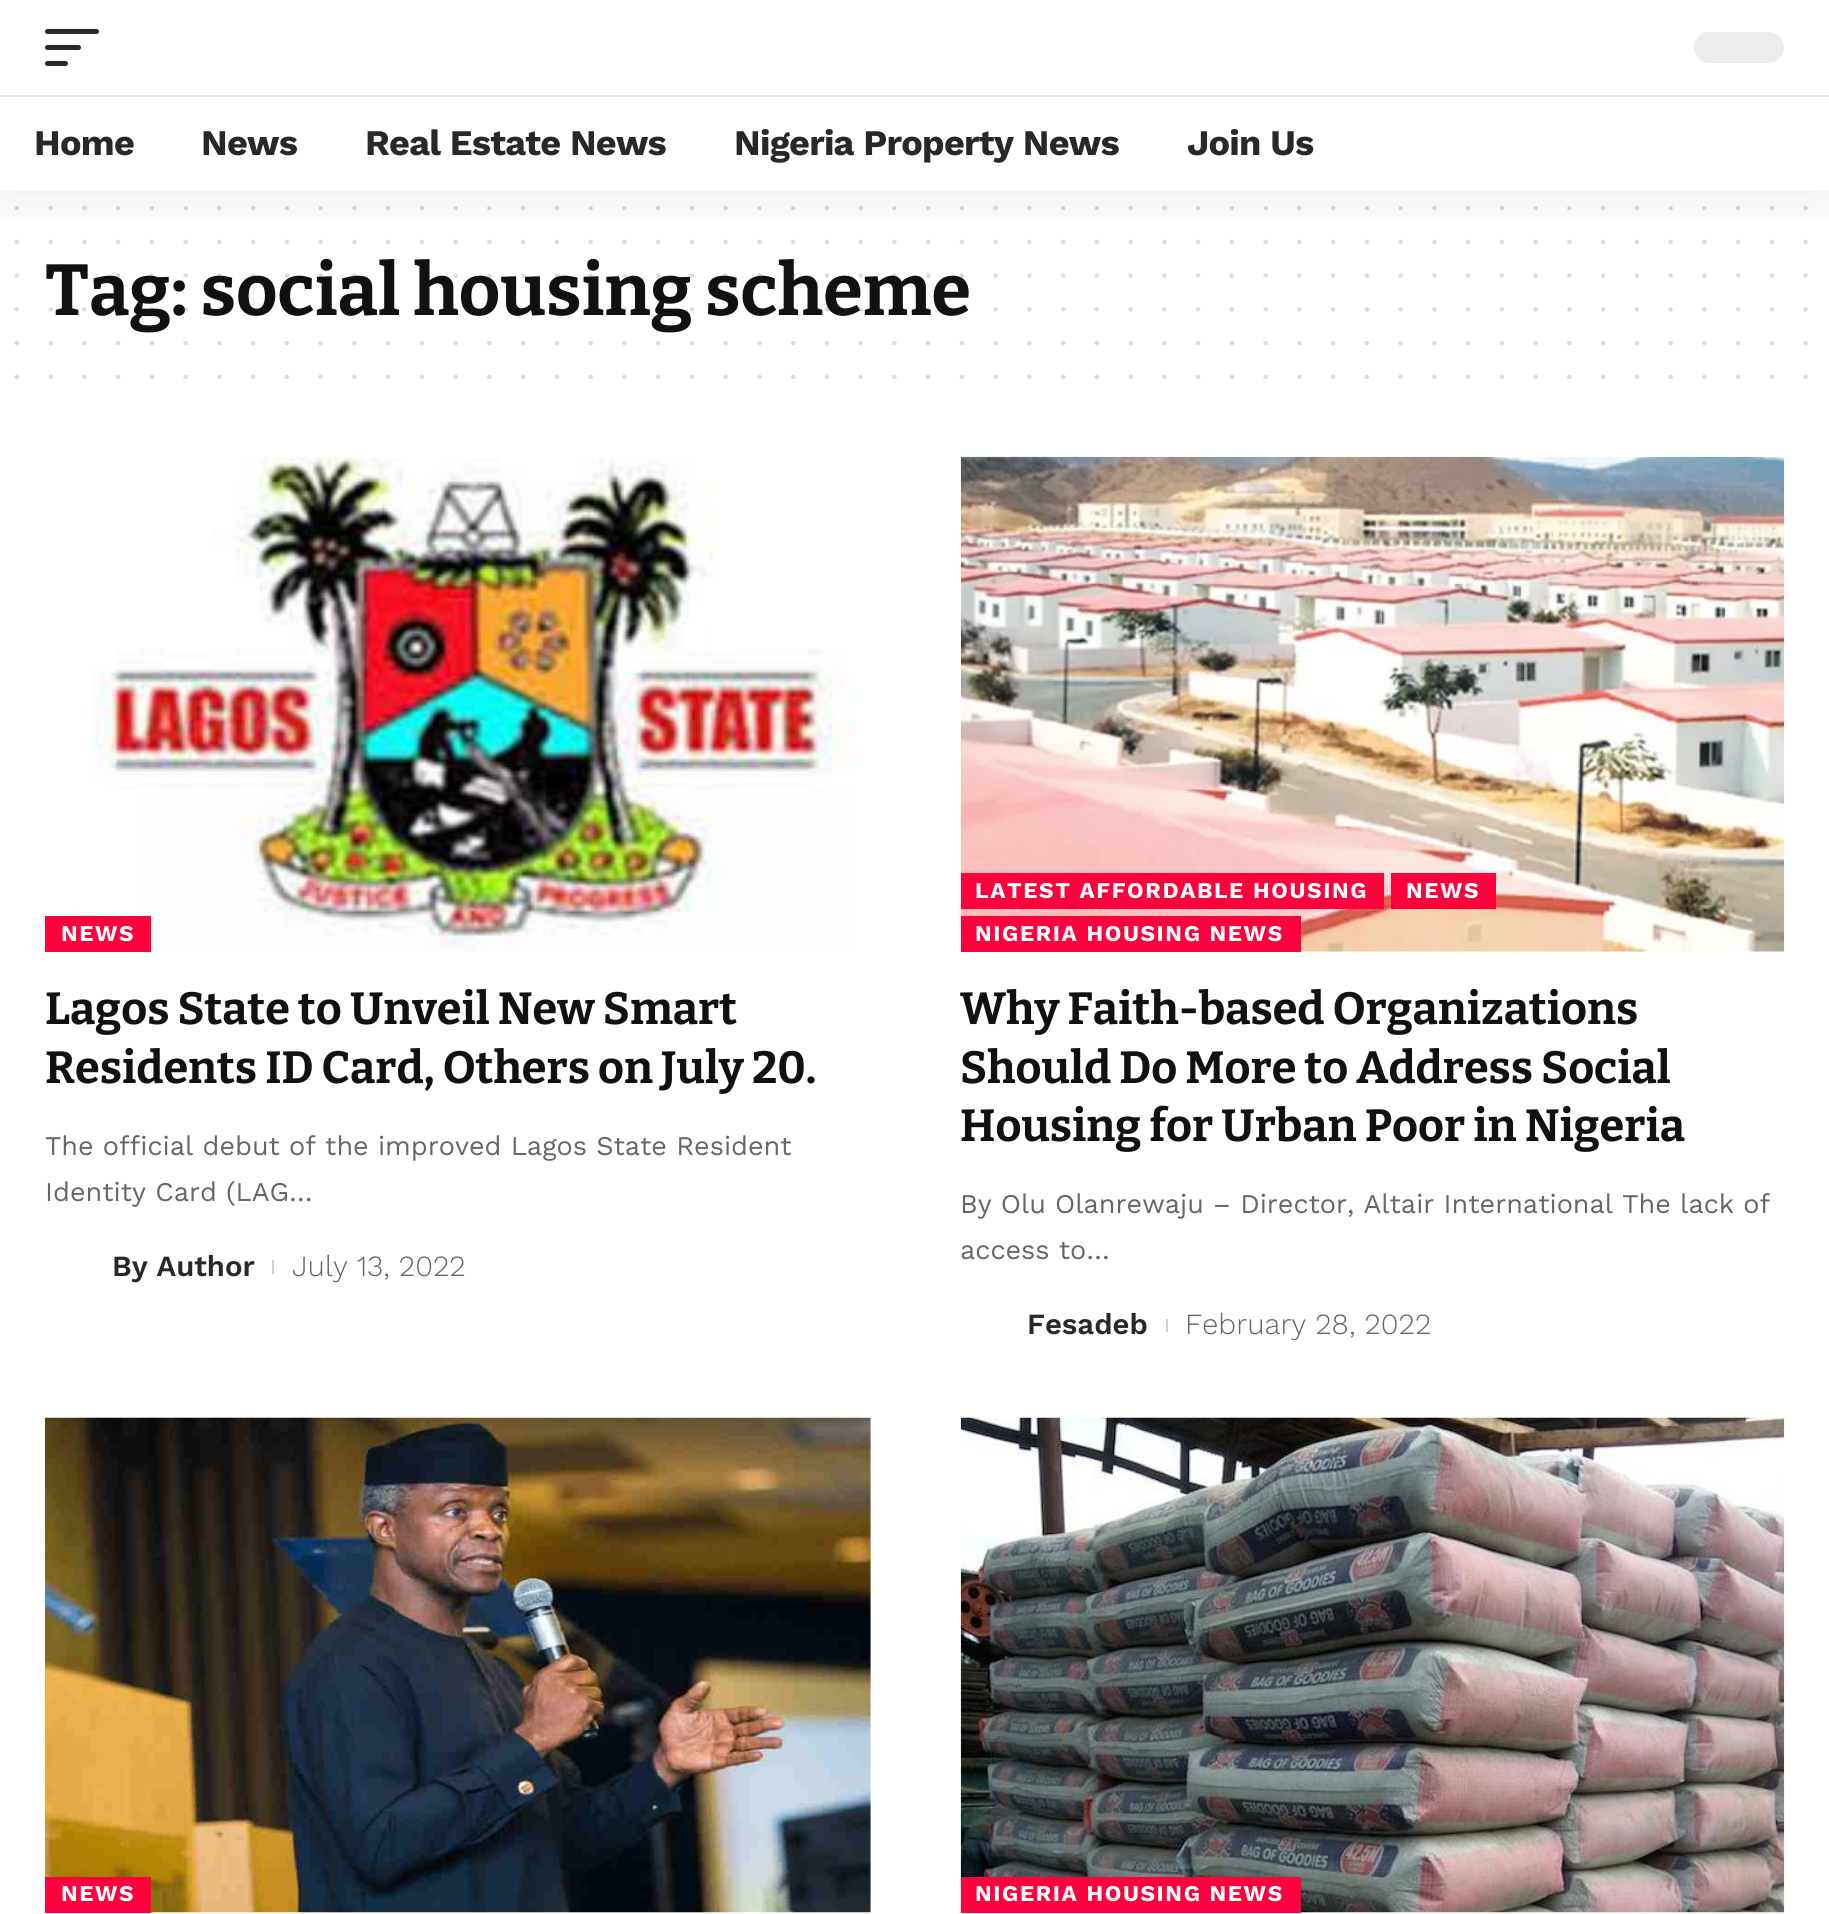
#include <cairo/cairo.h>
#include <math.h>
#include <stddef.h>

typedef struct { double x, y; const char *s; } line_t;
typedef struct { double x, y, w, h; unsigned color; } box_t;
static cairo_t *cr;

static void rgb(unsigned color)
{
	cairo_set_source_rgb(cr, (color >> 16) / 255.0, (color >> 8 & 255) / 255.0, (color & 255) / 255.0);
}

static void tracked(double x, double y, const char *s, double letter, double word)
{
	cairo_move_to(cr, x, y);
	while (*s) {
		char ch[5] = {0};
		int n = 0;
		do ch[n++] = *s++; while ((*s & 0xC0) == 0x80);
		cairo_show_text(cr, ch);
		cairo_rel_move_to(cr, letter + word * (*ch == ' '), 0);
	}
}

static void rrect(double x, double y, double w, double h, double r)
{
	cairo_new_sub_path(cr);
	cairo_arc(cr, x + w - r, y + h - r, r, 0, M_PI / 2);
	cairo_arc(cr, x + r, y + h - r, r, M_PI / 2, M_PI);
	cairo_arc(cr, x + r, y + r, r, M_PI, 1.5 * M_PI);
	cairo_arc(cr, x + w - r, y + r, r, 1.5 * M_PI, 2 * M_PI);
	cairo_close_path(cr);
}

static void soft_shadow(double x, double y, double w, double h, double r, double blur, double alpha)
{
	cairo_push_group_with_content(cr, CAIRO_CONTENT_ALPHA);
	cairo_set_operator(cr, CAIRO_OPERATOR_SOURCE);
	for (int i = 15; i >= -15 && fmin(w, h) + blur * i / 3 > 0; i -= 2) {
		double e = blur * i / 6;
		cairo_set_source_rgba(cr, 0, 0, 0, alpha * erfc((i - 1) / 8.5) / 2);
		rrect(x - e, y - e, w + 2 * e, h + 2 * e, fmax(0, fmin(r + e + blur * .6, fmin(w, h) / 2 + e)));
		cairo_fill(cr);
	}
	cairo_pattern_t *soft = cairo_pop_group(cr);
	cairo_mask(cr, soft);
	cairo_pattern_destroy(soft);
}

static void image(const char *path, double x, double y, double w, double h)
{
	cairo_surface_t *image = cairo_image_surface_create_from_png(path);
	cairo_save(cr);
	cairo_set_source_surface(cr, image, x, y);
	cairo_rectangle(cr, x, y, w, h);
	cairo_fill(cr);
	cairo_restore(cr);
	cairo_surface_destroy(image);
}

int main(void) {
	cairo_surface_t *surface = cairo_image_surface_create(CAIRO_FORMAT_RGB24, 1829, 1914);
	cr = cairo_create(surface);
	cairo_font_options_t *options = cairo_font_options_create();
	cairo_font_options_set_hint_metrics(options, CAIRO_HINT_METRICS_OFF);
	cairo_font_options_set_hint_style(options, CAIRO_HINT_STYLE_NONE);
	cairo_set_font_options(cr, options);
	cairo_set_miter_limit(cr, 4);
	rgb(0xffffff);
	cairo_paint(cr);
	cairo_new_path(cr);
	cairo_move_to(cr, 16.9, 208.1);
	cairo_line_to(cr, 1806.1, 208.1);
	rgb(0xdbdbdb);
	cairo_set_line_width(cr, 4.5);
	cairo_set_line_cap(cr, CAIRO_LINE_CAP_ROUND);
	cairo_set_dash(cr, (double[]){0, 33.75}, 2, 0);
	cairo_stroke(cr);
	cairo_new_path(cr);
	cairo_move_to(cr, 16.9, 241.9);
	cairo_line_to(cr, 1806.1, 241.9);
	cairo_stroke(cr);
	cairo_new_path(cr);
	cairo_move_to(cr, 16.9, 343.1);
	cairo_line_to(cr, 1806.1, 343.1);
	cairo_stroke(cr);
	cairo_new_path(cr);
	cairo_move_to(cr, 16.9, 376.9);
	cairo_line_to(cr, 1806.1, 376.9);
	cairo_stroke(cr);
	image("img/1.png", 91, 457, 766, 495);
	rgb(0xff003c);
	cairo_rectangle(cr, 45, 916, 106, 36);
	cairo_fill(cr);
	rgb(0xd1d1d1);
	cairo_rectangle(cr, 272, 1260, 2, 14);
	cairo_fill(cr);
	image("img/2.png", 960, 456, 825, 496);
	{
		static const box_t items[] = {
			{961, 873, 423, 36, 0xff003c},
			{1391, 873, 105, 36, 0xff003c},
			{961, 916, 340, 36, 0xff003c},
			{1166, 1319, 2, 13, 0xd1d1d1},
		};
		for (size_t i = 0; i < sizeof items / sizeof *items; i++) {
			rgb(items[i].color);
			cairo_rectangle(cr, items[i].x, items[i].y, items[i].w, items[i].h);
			cairo_fill(cr);
		}
	}
	image("img/3.png", 45, 1417, 826, 496);
	rgb(0xff003c);
	cairo_rectangle(cr, 45, 1877, 106, 36);
	cairo_fill(cr);
	image("img/4.png", 960, 1417, 825, 496);
	cairo_rectangle(cr, 961, 1877, 340, 36);
	cairo_fill(cr);
	cairo_select_font_face(cr, "Bitter", CAIRO_FONT_SLANT_NORMAL, CAIRO_FONT_WEIGHT_BOLD);
	cairo_set_font_size(cr, 72);
	rgb(0x111111);
	cairo_move_to(cr, 45, 315);
	cairo_show_text(cr, "Tag: social housing scheme");
	cairo_new_path(cr);
	cairo_move_to(cr, 16.9, 275.6);
	cairo_line_to(cr, 1806.1, 275.6);
	cairo_set_source_rgba(cr, 0.067, 0.067, 0.067, 0.15);
	cairo_stroke(cr);
	cairo_save(cr);
	cairo_rectangle(cr, 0, 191, 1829, 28);
	cairo_clip(cr);
	rgb(0x000000);
	soft_shadow(0, 9, 1829, 191, 0, 34, 0.07);
	cairo_restore(cr);
	cairo_select_font_face(cr, "Work Sans", CAIRO_FONT_SLANT_NORMAL, CAIRO_FONT_WEIGHT_BOLD);
	cairo_set_font_size(cr, 36);
	rgb(0x282828);
	{
		static const line_t items[] = {
			{1187, 155, "Join Us"},
			{734, 155, "Nigeria Property News"},
			{365, 155, "Real Estate News"},
			{201, 155, "News"},
			{34, 155, "Home"},
		};
		for (size_t i = 0; i < sizeof items / sizeof *items; i++) {
			tracked(items[i].x, items[i].y, items[i].s, -0.75, 0);
		}
	}
	rgb(0xe4e4e4);
	cairo_rectangle(cr, 0, 95, 1829, 2);
	cairo_fill(cr);
	rgb(0xededed);
	rrect(1694, 32, 90, 31, 15.5);
	cairo_fill(cr);
	rgb(0x282828);
	rrect(45, 61, 23, 5, 2.5);
	cairo_fill(cr);
	rrect(45, 45, 36, 5, 2.5);
	cairo_fill(cr);
	rrect(45, 29, 54, 5, 2.5);
	cairo_fill(cr);
	cairo_new_path(cr);
	cairo_move_to(cr, 16.9, 309.4);
	cairo_line_to(cr, 1806.1, 309.4);
	cairo_set_source_rgba(cr, 0.067, 0.067, 0.067, 0.15);
	cairo_stroke(cr);
	cairo_set_font_size(cr, 22.5);
	rgb(0xffffff);
	tracked(61, 941, "NEWS", 1.6, 0);
	cairo_select_font_face(cr, "Bitter", CAIRO_FONT_SLANT_NORMAL, CAIRO_FONT_WEIGHT_BOLD);
	cairo_set_font_size(cr, 45);
	rgb(0x111111);
	cairo_move_to(cr, 45, 1024);
	cairo_show_text(cr, "Lagos State to Unveil New Smart");
	cairo_move_to(cr, 45, 1083);
	cairo_show_text(cr, "Residents ID Card, Others on July 20.");
	cairo_select_font_face(cr, "Work Sans", CAIRO_FONT_SLANT_NORMAL, CAIRO_FONT_WEIGHT_NORMAL);
	cairo_set_font_size(cr, 27);
	rgb(0x666666);
	cairo_move_to(cr, 45, 1155);
	cairo_show_text(cr, "The official debut of the improved Lagos State Resident");
	cairo_move_to(cr, 45, 1201);
	cairo_show_text(cr, "Identity Card (LAG…");
	cairo_select_font_face(cr, "Work Sans SemiBold", CAIRO_FONT_SLANT_NORMAL, CAIRO_FONT_WEIGHT_NORMAL);
	cairo_set_font_size(cr, 29.25);
	rgb(0x282828);
	cairo_move_to(cr, 112, 1276);
	cairo_show_text(cr, "By Author");
	cairo_select_font_face(cr, "Work Sans Light", CAIRO_FONT_SLANT_NORMAL, CAIRO_FONT_WEIGHT_NORMAL);
	rgb(0x666666);
	cairo_move_to(cr, 292, 1276);
	cairo_show_text(cr, "July 13, 2022");
	cairo_select_font_face(cr, "Work Sans", CAIRO_FONT_SLANT_NORMAL, CAIRO_FONT_WEIGHT_BOLD);
	cairo_set_font_size(cr, 22.5);
	rgb(0xffffff);
	{
		static const line_t items[] = {
			{975, 898, "LATEST AFFORDABLE HOUSING"},
			{1406, 898, "NEWS"},
			{975, 941, "NIGERIA HOUSING NEWS"},
		};
		for (size_t i = 0; i < sizeof items / sizeof *items; i++) {
			tracked(items[i].x, items[i].y, items[i].s, 1.6, 0);
		}
	}
	cairo_select_font_face(cr, "Bitter", CAIRO_FONT_SLANT_NORMAL, CAIRO_FONT_WEIGHT_BOLD);
	cairo_set_font_size(cr, 45);
	rgb(0x111111);
	{
		static const line_t items[] = {
			{960, 1024, "Why Faith-based Organizations"},
			{960, 1083, "Should Do More to Address Social"},
			{960, 1141, "Housing for Urban Poor in Nigeria"},
		};
		for (size_t i = 0; i < sizeof items / sizeof *items; i++) {
			cairo_move_to(cr, items[i].x, items[i].y);
			cairo_show_text(cr, items[i].s);
		}
	}
	cairo_select_font_face(cr, "Work Sans", CAIRO_FONT_SLANT_NORMAL, CAIRO_FONT_WEIGHT_NORMAL);
	cairo_set_font_size(cr, 27);
	rgb(0x666666);
	cairo_move_to(cr, 960, 1213);
	cairo_show_text(cr, "By Olu Olanrewaju – Director, Altair International The lack of");
	cairo_move_to(cr, 960, 1259);
	cairo_show_text(cr, "access to…");
	cairo_select_font_face(cr, "Work Sans SemiBold", CAIRO_FONT_SLANT_NORMAL, CAIRO_FONT_WEIGHT_NORMAL);
	cairo_set_font_size(cr, 29.25);
	rgb(0x282828);
	cairo_move_to(cr, 1027, 1334);
	cairo_show_text(cr, "Fesadeb");
	cairo_select_font_face(cr, "Work Sans Light", CAIRO_FONT_SLANT_NORMAL, CAIRO_FONT_WEIGHT_NORMAL);
	rgb(0x666666);
	cairo_move_to(cr, 1185, 1334);
	cairo_show_text(cr, "February 28, 2022");
	cairo_select_font_face(cr, "Work Sans", CAIRO_FONT_SLANT_NORMAL, CAIRO_FONT_WEIGHT_BOLD);
	cairo_set_font_size(cr, 22.5);
	rgb(0xffffff);
	tracked(61, 1901, "NEWS", 1.6, 0);
	tracked(975, 1901, "NIGERIA HOUSING NEWS", 1.6, 0);
	cairo_surface_write_to_png(surface, "page.png");
	cairo_font_options_destroy(options);
	cairo_destroy(cr);
	cairo_surface_destroy(surface);
	return 0;
}
